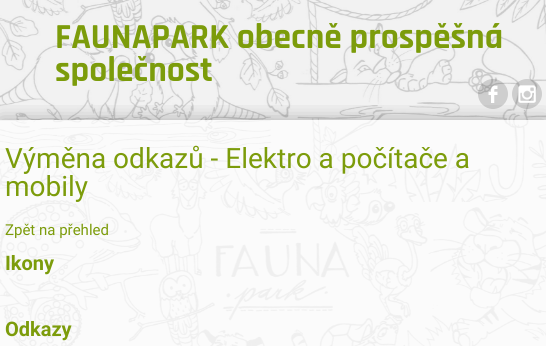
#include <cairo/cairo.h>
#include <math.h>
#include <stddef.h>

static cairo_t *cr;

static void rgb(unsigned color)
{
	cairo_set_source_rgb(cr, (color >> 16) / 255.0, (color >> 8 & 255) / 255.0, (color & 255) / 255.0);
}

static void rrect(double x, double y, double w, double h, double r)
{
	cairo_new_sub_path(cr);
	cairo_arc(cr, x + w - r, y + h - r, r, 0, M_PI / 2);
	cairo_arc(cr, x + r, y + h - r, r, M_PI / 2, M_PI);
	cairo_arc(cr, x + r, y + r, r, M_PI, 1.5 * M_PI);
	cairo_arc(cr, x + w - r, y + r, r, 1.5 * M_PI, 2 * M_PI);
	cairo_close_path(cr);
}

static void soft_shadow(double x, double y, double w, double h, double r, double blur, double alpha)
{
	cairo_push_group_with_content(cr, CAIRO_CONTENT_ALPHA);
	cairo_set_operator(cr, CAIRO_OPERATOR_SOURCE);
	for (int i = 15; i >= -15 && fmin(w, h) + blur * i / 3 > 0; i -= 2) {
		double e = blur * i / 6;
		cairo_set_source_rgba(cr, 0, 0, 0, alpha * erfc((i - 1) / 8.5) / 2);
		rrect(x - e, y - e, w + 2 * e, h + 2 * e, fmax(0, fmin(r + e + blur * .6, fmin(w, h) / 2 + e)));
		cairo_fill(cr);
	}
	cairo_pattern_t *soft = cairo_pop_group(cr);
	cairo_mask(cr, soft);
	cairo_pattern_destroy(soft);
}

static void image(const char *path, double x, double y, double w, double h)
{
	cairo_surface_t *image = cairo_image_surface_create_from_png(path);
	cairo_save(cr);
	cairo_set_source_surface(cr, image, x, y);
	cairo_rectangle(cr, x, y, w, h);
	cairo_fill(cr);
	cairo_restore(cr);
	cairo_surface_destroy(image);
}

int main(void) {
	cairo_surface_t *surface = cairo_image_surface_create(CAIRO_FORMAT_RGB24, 546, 346);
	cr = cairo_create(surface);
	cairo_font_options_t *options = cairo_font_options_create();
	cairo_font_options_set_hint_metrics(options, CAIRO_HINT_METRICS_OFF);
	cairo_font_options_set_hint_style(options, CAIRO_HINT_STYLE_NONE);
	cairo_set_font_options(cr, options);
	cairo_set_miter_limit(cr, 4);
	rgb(0xffffff);
	cairo_paint(cr);
	image("img/1.png", 0, 0, 546, 346);
	cairo_save(cr);
	cairo_rectangle(cr, 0, 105, 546, 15);
	cairo_clip(cr);
	rgb(0x000000);
	soft_shadow(0, 120, 546, 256, 0, 10, 0.3);
	cairo_restore(cr);
	cairo_set_source_rgba(cr, 0, 0, 0, 0.15);
	cairo_arc(cr, 493, 94, 15, 0, 2 * M_PI);
	cairo_fill(cr);
	image("img/2.png", 488, 85, 10, 18);
	cairo_arc(cr, 527, 94, 15, 0, 2 * M_PI);
	cairo_fill(cr);
	image("img/3.png", 518, 85, 18, 18);
	cairo_set_source_rgba(cr, 1, 1, 1, 0.7);
	cairo_rectangle(cr, 0, 120, 546, 226);
	cairo_fill(cr);
	cairo_select_font_face(cr, "Rajdhani", CAIRO_FONT_SLANT_NORMAL, CAIRO_FONT_WEIGHT_BOLD);
	cairo_set_font_size(cr, 35.5);
	rgb(0x7c9c0b);
	cairo_move_to(cr, 55, 48);
	cairo_show_text(cr, "FAUNAPARK obecně prospěšná");
	cairo_move_to(cr, 55, 81);
	cairo_show_text(cr, "společnost");
	cairo_select_font_face(cr, "Roboto", CAIRO_FONT_SLANT_NORMAL, CAIRO_FONT_WEIGHT_NORMAL);
	cairo_set_font_size(cr, 28);
	cairo_move_to(cr, 5, 168);
	cairo_show_text(cr, "Výměna odkazů - Elektro a počítače a");
	cairo_move_to(cr, 5, 196);
	cairo_show_text(cr, "mobily");
	cairo_set_font_size(cr, 15);
	cairo_move_to(cr, 5, 235);
	cairo_show_text(cr, "Zpět na přehled");
	cairo_select_font_face(cr, "Roboto", CAIRO_FONT_SLANT_NORMAL, CAIRO_FONT_WEIGHT_BOLD);
	cairo_set_font_size(cr, 20);
	cairo_move_to(cr, 5, 270);
	cairo_show_text(cr, "Ikony");
	cairo_move_to(cr, 5, 336);
	cairo_show_text(cr, "Odkazy");
	cairo_surface_write_to_png(surface, "page.png");
	cairo_font_options_destroy(options);
	cairo_destroy(cr);
	cairo_surface_destroy(surface);
	return 0;
}
